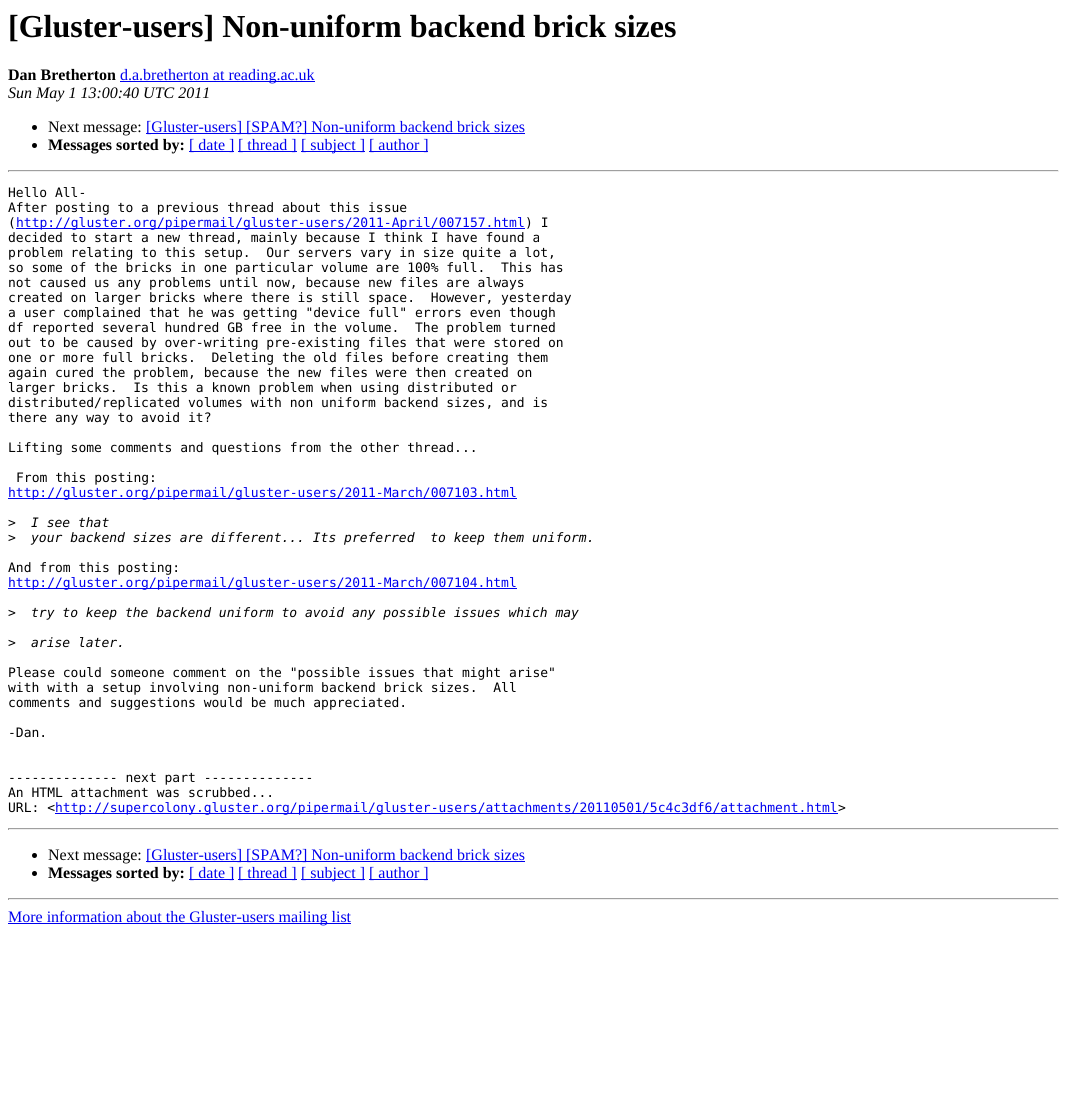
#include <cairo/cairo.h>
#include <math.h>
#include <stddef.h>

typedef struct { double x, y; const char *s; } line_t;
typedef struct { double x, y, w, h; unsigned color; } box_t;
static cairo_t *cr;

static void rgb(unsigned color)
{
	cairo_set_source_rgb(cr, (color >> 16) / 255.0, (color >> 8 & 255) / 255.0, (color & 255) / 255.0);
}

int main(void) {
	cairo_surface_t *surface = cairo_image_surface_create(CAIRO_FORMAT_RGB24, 1067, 1115);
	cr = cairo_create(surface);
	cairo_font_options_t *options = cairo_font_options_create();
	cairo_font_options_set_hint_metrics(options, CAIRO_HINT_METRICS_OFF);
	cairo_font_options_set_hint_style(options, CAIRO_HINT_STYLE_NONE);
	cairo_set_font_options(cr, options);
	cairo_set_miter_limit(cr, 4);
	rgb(0xffffff);
	cairo_paint(cr);
	rgb(0x0000ee);
	cairo_rectangle(cr, 120, 81, 195, 1);
	cairo_fill(cr);
	rgb(0x000000);
	cairo_arc(cr, 34.5, 127.5, 2.5, 0, 2 * M_PI);
	cairo_fill(cr);
	rgb(0x0000ee);
	cairo_rectangle(cr, 146, 133, 379, 1);
	cairo_fill(cr);
	rgb(0x000000);
	cairo_arc(cr, 34.5, 145.5, 2.5, 0, 2 * M_PI);
	cairo_fill(cr);
	{
		static const box_t items[] = {
			{189, 151, 45, 1, 0x0000ee},
			{238, 151, 59, 1, 0x0000ee},
			{301, 151, 64, 1, 0x0000ee},
			{369, 151, 59, 1, 0x0000ee},
			{8, 170, 1051, 1, 0x9f9f9f},
			{1058, 170, 1, 2, 0xeeeeee},
			{8, 171, 1051, 1, 0xeeeeee},
			{8, 170, 1, 2, 0x9f9f9f},
			{16, 228, 509, 1, 0x0000ee},
			{8, 498, 509, 1, 0x0000ee},
			{8, 588, 509, 1, 0x0000ee},
			{55, 813, 783, 1, 0x0000ee},
			{8, 828, 1051, 1, 0x9f9f9f},
			{1058, 828, 1, 2, 0xeeeeee},
			{8, 829, 1051, 1, 0xeeeeee},
			{8, 828, 1, 2, 0x9f9f9f},
		};
		for (size_t i = 0; i < sizeof items / sizeof *items; i++) {
			rgb(items[i].color);
			cairo_rectangle(cr, items[i].x, items[i].y, items[i].w, items[i].h);
			cairo_fill(cr);
		}
	}
	rgb(0x000000);
	cairo_arc(cr, 34.5, 855.5, 2.5, 0, 2 * M_PI);
	cairo_fill(cr);
	rgb(0x0000ee);
	cairo_rectangle(cr, 146, 861, 379, 1);
	cairo_fill(cr);
	rgb(0x000000);
	cairo_arc(cr, 34.5, 873.5, 2.5, 0, 2 * M_PI);
	cairo_fill(cr);
	{
		static const box_t items[] = {
			{189, 879, 45, 1, 0x0000ee},
			{238, 879, 59, 1, 0x0000ee},
			{301, 879, 64, 1, 0x0000ee},
			{369, 879, 59, 1, 0x0000ee},
			{8, 898, 1051, 1, 0x9f9f9f},
			{1058, 898, 1, 2, 0xeeeeee},
			{8, 899, 1051, 1, 0xeeeeee},
			{8, 898, 1, 2, 0x9f9f9f},
			{8, 923, 343, 1, 0x0000ee},
		};
		for (size_t i = 0; i < sizeof items / sizeof *items; i++) {
			rgb(items[i].color);
			cairo_rectangle(cr, items[i].x, items[i].y, items[i].w, items[i].h);
			cairo_fill(cr);
		}
	}
	cairo_select_font_face(cr, "Liberation Serif", CAIRO_FONT_SLANT_NORMAL, CAIRO_FONT_WEIGHT_BOLD);
	cairo_set_font_size(cr, 32);
	rgb(0x000000);
	cairo_move_to(cr, 8, 37);
	cairo_show_text(cr, "[Gluster-users] Non-uniform backend brick sizes");
	cairo_set_font_size(cr, 16);
	cairo_move_to(cr, 8, 80);
	cairo_show_text(cr, "Dan Bretherton");
	cairo_select_font_face(cr, "Liberation Serif", CAIRO_FONT_SLANT_NORMAL, CAIRO_FONT_WEIGHT_NORMAL);
	rgb(0x0000ee);
	cairo_move_to(cr, 120, 80);
	cairo_show_text(cr, "d.a.bretherton at reading.ac.uk");
	cairo_select_font_face(cr, "Liberation Serif", CAIRO_FONT_SLANT_ITALIC, CAIRO_FONT_WEIGHT_NORMAL);
	rgb(0x000000);
	cairo_move_to(cr, 8, 98);
	cairo_show_text(cr, "Sun May 1 13:00:40 UTC 2011");
	cairo_select_font_face(cr, "Liberation Serif", CAIRO_FONT_SLANT_NORMAL, CAIRO_FONT_WEIGHT_NORMAL);
	cairo_move_to(cr, 48, 132);
	cairo_show_text(cr, "Next message:");
	rgb(0x0000ee);
	cairo_move_to(cr, 146, 132);
	cairo_show_text(cr, "[Gluster-users] [SPAM?] Non-uniform backend brick sizes");
	cairo_select_font_face(cr, "Liberation Serif", CAIRO_FONT_SLANT_NORMAL, CAIRO_FONT_WEIGHT_BOLD);
	rgb(0x000000);
	cairo_move_to(cr, 48, 150);
	cairo_show_text(cr, "Messages sorted by:");
	cairo_select_font_face(cr, "Liberation Serif", CAIRO_FONT_SLANT_NORMAL, CAIRO_FONT_WEIGHT_NORMAL);
	rgb(0x0000ee);
	{
		static const line_t items[] = {
			{189, 150, "[ date ]"},
			{238, 150, "[ thread ]"},
			{301, 150, "[ subject ]"},
			{369, 150, "[ author ]"},
		};
		for (size_t i = 0; i < sizeof items / sizeof *items; i++) {
			cairo_move_to(cr, items[i].x, items[i].y);
			cairo_show_text(cr, items[i].s);
		}
	}
	cairo_select_font_face(cr, "DejaVu Sans Mono", CAIRO_FONT_SLANT_NORMAL, CAIRO_FONT_WEIGHT_NORMAL);
	cairo_set_font_size(cr, 13);
	rgb(0x000000);
	{
		static const line_t items[] = {
			{8, 197, "Hello All-"},
			{8, 212, "After posting to a previous thread about this issue"},
			{8, 227, "("},
		};
		for (size_t i = 0; i < sizeof items / sizeof *items; i++) {
			cairo_move_to(cr, items[i].x, items[i].y);
			cairo_show_text(cr, items[i].s);
		}
	}
	rgb(0x0000ee);
	cairo_move_to(cr, 16, 227);
	cairo_show_text(cr, "http://gluster.org/pipermail/gluster-users/2011-April/007157.html");
	rgb(0x000000);
	{
		static const line_t items[] = {
			{525, 227, ") I"},
			{8, 242, "decided to start a new thread, mainly because I think I have found a"},
			{8, 257, "problem relating to this setup.  Our servers vary in size quite a lot,"},
			{8, 272, "so some of the bricks in one particular volume are 100% full.  This has"},
			{8, 287, "not caused us any problems until now, because new files are always"},
			{8, 302, "created on larger bricks where there is still space.  However, yesterday"},
			{8, 317, "a user complained that he was getting \"device full\" errors even though"},
			{8, 332, "df reported several hundred GB free in the volume.  The problem turned"},
			{8, 347, "out to be caused by over-writing pre-existing files that were stored on"},
			{8, 362, "one or more full bricks.  Deleting the old files before creating them"},
			{8, 377, "again cured the problem, because the new files were then created on"},
			{8, 392, "larger bricks.  Is this a known problem when using distributed or"},
			{8, 407, "distributed/replicated volumes with non uniform backend sizes, and is"},
			{8, 422, "there any way to avoid it?"},
			{8, 452, "Lifting some comments and questions from the other thread..."},
			{16, 482, "From this posting:"},
		};
		for (size_t i = 0; i < sizeof items / sizeof *items; i++) {
			cairo_move_to(cr, items[i].x, items[i].y);
			cairo_show_text(cr, items[i].s);
		}
	}
	rgb(0x0000ee);
	cairo_move_to(cr, 8, 497);
	cairo_show_text(cr, "http://gluster.org/pipermail/gluster-users/2011-March/007103.html");
	rgb(0x000000);
	cairo_move_to(cr, 8, 527);
	cairo_show_text(cr, ">");
	cairo_select_font_face(cr, "DejaVu Sans Mono", CAIRO_FONT_SLANT_ITALIC, CAIRO_FONT_WEIGHT_NORMAL);
	cairo_move_to(cr, 31, 527);
	cairo_show_text(cr, "I see that");
	cairo_select_font_face(cr, "DejaVu Sans Mono", CAIRO_FONT_SLANT_NORMAL, CAIRO_FONT_WEIGHT_NORMAL);
	cairo_move_to(cr, 8, 542);
	cairo_show_text(cr, ">");
	cairo_select_font_face(cr, "DejaVu Sans Mono", CAIRO_FONT_SLANT_ITALIC, CAIRO_FONT_WEIGHT_NORMAL);
	cairo_move_to(cr, 31, 542);
	cairo_show_text(cr, "your backend sizes are different... Its preferred  to keep them uniform.");
	cairo_select_font_face(cr, "DejaVu Sans Mono", CAIRO_FONT_SLANT_NORMAL, CAIRO_FONT_WEIGHT_NORMAL);
	cairo_move_to(cr, 8, 572);
	cairo_show_text(cr, "And from this posting:");
	rgb(0x0000ee);
	cairo_move_to(cr, 8, 587);
	cairo_show_text(cr, "http://gluster.org/pipermail/gluster-users/2011-March/007104.html");
	rgb(0x000000);
	cairo_move_to(cr, 8, 617);
	cairo_show_text(cr, ">");
	cairo_select_font_face(cr, "DejaVu Sans Mono", CAIRO_FONT_SLANT_ITALIC, CAIRO_FONT_WEIGHT_NORMAL);
	cairo_move_to(cr, 31, 617);
	cairo_show_text(cr, "try to keep the backend uniform to avoid any possible issues which may");
	cairo_select_font_face(cr, "DejaVu Sans Mono", CAIRO_FONT_SLANT_NORMAL, CAIRO_FONT_WEIGHT_NORMAL);
	cairo_move_to(cr, 8, 647);
	cairo_show_text(cr, ">");
	cairo_select_font_face(cr, "DejaVu Sans Mono", CAIRO_FONT_SLANT_ITALIC, CAIRO_FONT_WEIGHT_NORMAL);
	cairo_move_to(cr, 31, 647);
	cairo_show_text(cr, "arise later.");
	cairo_select_font_face(cr, "DejaVu Sans Mono", CAIRO_FONT_SLANT_NORMAL, CAIRO_FONT_WEIGHT_NORMAL);
	{
		static const line_t items[] = {
			{8, 677, "Please could someone comment on the \"possible issues that might arise\""},
			{8, 692, "with with a setup involving non-uniform backend brick sizes.  All"},
			{8, 707, "comments and suggestions would be much appreciated."},
			{8, 737, "-Dan."},
			{8, 782, "-------------- next part --------------"},
			{8, 797, "An HTML attachment was scrubbed..."},
			{8, 812, "URL: <"},
		};
		for (size_t i = 0; i < sizeof items / sizeof *items; i++) {
			cairo_move_to(cr, items[i].x, items[i].y);
			cairo_show_text(cr, items[i].s);
		}
	}
	rgb(0x0000ee);
	cairo_move_to(cr, 55, 812);
	cairo_show_text(cr, "http://supercolony.gluster.org/pipermail/gluster-users/attachments/20110501/5c4c3df6/attachment.html");
	rgb(0x000000);
	cairo_move_to(cr, 838, 812);
	cairo_show_text(cr, ">");
	cairo_select_font_face(cr, "Liberation Serif", CAIRO_FONT_SLANT_NORMAL, CAIRO_FONT_WEIGHT_NORMAL);
	cairo_set_font_size(cr, 16);
	cairo_move_to(cr, 48, 860);
	cairo_show_text(cr, "Next message:");
	rgb(0x0000ee);
	cairo_move_to(cr, 146, 860);
	cairo_show_text(cr, "[Gluster-users] [SPAM?] Non-uniform backend brick sizes");
	cairo_select_font_face(cr, "Liberation Serif", CAIRO_FONT_SLANT_NORMAL, CAIRO_FONT_WEIGHT_BOLD);
	rgb(0x000000);
	cairo_move_to(cr, 48, 878);
	cairo_show_text(cr, "Messages sorted by:");
	cairo_select_font_face(cr, "Liberation Serif", CAIRO_FONT_SLANT_NORMAL, CAIRO_FONT_WEIGHT_NORMAL);
	rgb(0x0000ee);
	{
		static const line_t items[] = {
			{189, 878, "[ date ]"},
			{238, 878, "[ thread ]"},
			{301, 878, "[ subject ]"},
			{369, 878, "[ author ]"},
			{8, 922, "More information about the Gluster-users mailing list"},
		};
		for (size_t i = 0; i < sizeof items / sizeof *items; i++) {
			cairo_move_to(cr, items[i].x, items[i].y);
			cairo_show_text(cr, items[i].s);
		}
	}
	cairo_surface_write_to_png(surface, "page.png");
	cairo_font_options_destroy(options);
	cairo_destroy(cr);
	cairo_surface_destroy(surface);
	return 0;
}
